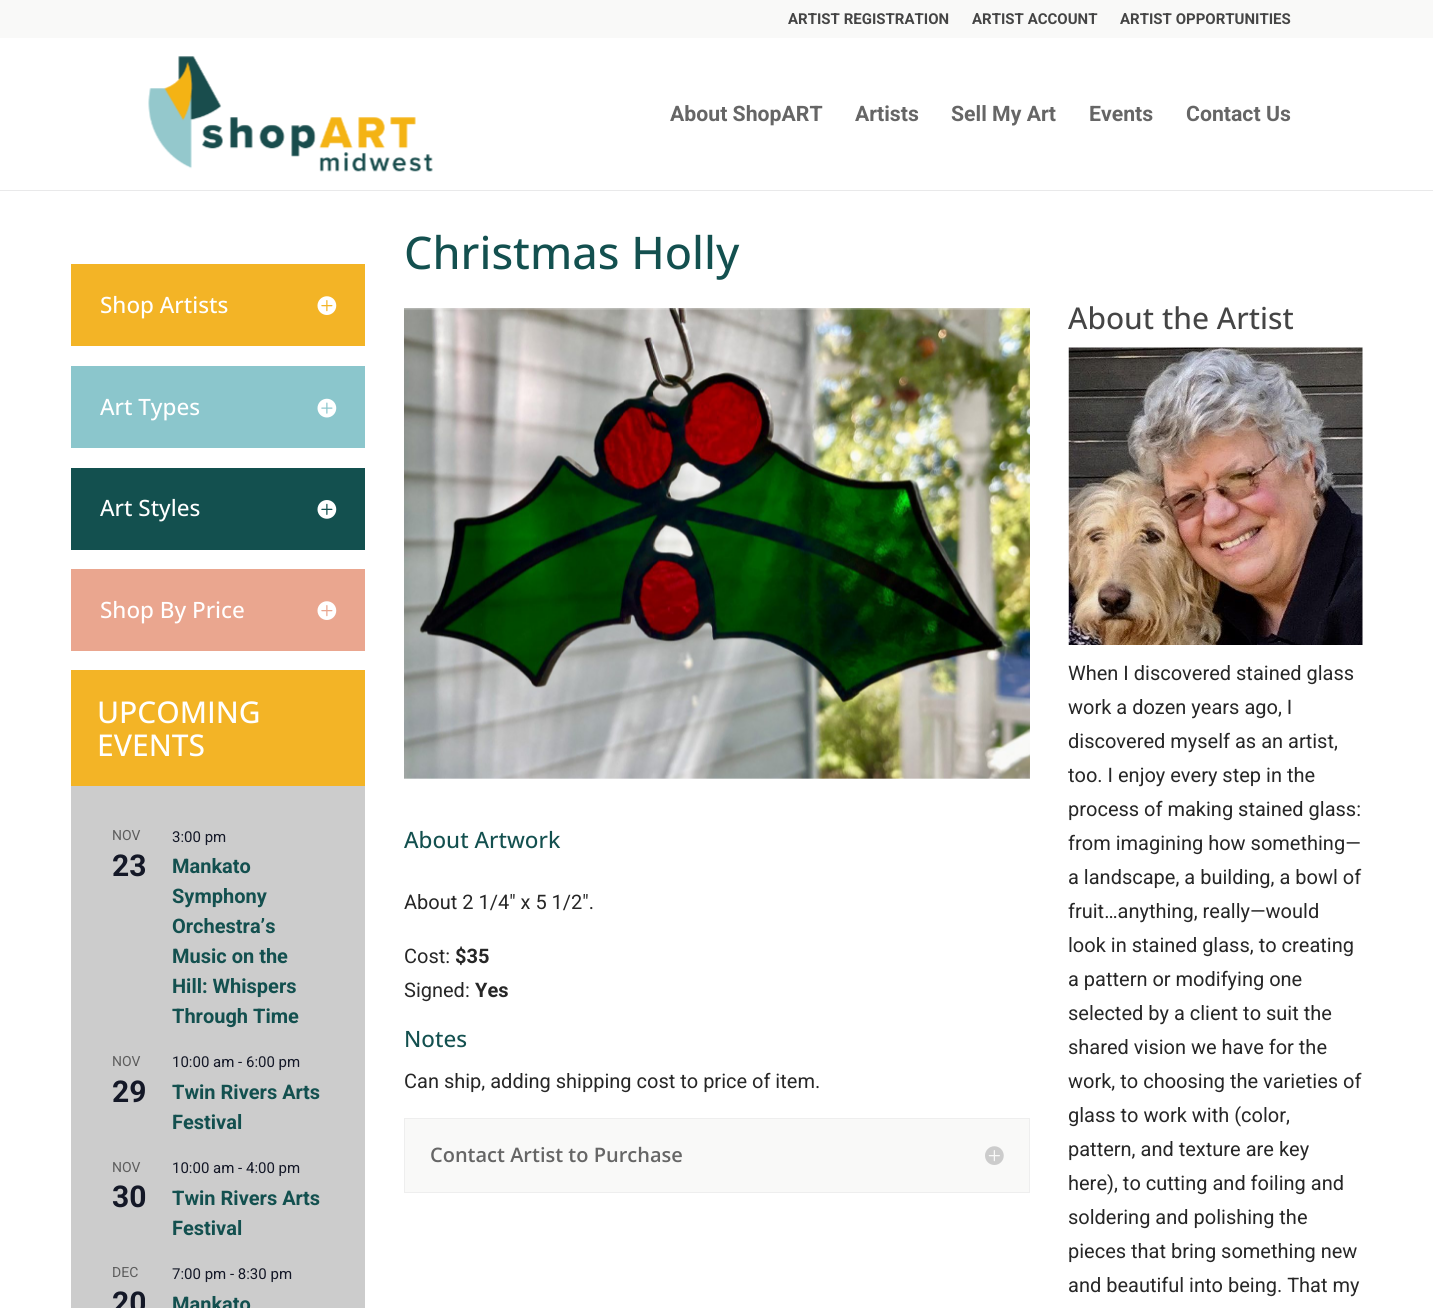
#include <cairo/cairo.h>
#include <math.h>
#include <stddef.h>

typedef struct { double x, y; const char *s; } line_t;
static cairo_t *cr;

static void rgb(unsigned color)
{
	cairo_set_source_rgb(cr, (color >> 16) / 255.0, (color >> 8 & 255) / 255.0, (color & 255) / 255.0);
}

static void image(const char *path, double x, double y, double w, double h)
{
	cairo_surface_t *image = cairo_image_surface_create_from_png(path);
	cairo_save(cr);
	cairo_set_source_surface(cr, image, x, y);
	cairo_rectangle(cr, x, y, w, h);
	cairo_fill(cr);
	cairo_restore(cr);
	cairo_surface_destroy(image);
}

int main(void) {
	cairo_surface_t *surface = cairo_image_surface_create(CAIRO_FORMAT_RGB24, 1433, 1308);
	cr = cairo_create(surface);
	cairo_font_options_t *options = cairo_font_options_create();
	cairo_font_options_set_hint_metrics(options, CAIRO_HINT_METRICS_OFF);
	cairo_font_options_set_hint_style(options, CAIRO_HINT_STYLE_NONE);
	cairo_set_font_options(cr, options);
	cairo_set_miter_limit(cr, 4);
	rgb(0xffffff);
	cairo_paint(cr);
	rgb(0xf9f9f8);
	cairo_rectangle(cr, 0, 0, 1433, 38);
	cairo_fill(cr);
	rgb(0xe9e9ea);
	cairo_rectangle(cr, 0, 190, 1433, 1);
	cairo_fill(cr);
	image("img/1.png", 148, 56, 285, 116);
	rgb(0xf3b426);
	cairo_rectangle(cr, 71, 264, 294, 82);
	cairo_fill(cr);
	image("img/2.png", 317, 296, 20, 19);
	rgb(0x8bc6cc);
	cairo_rectangle(cr, 71, 366, 294, 82);
	cairo_fill(cr);
	image("img/3.png", 317, 398, 20, 20);
	rgb(0x13504f);
	cairo_rectangle(cr, 71, 468, 294, 82);
	cairo_fill(cr);
	image("img/4.png", 317, 500, 20, 19);
	rgb(0xeaa68f);
	cairo_rectangle(cr, 71, 569, 294, 82);
	cairo_fill(cr);
	image("img/5.png", 317, 601, 20, 19);
	rgb(0xf3b426);
	cairo_rectangle(cr, 71, 670, 294, 116);
	cairo_fill(cr);
	rgb(0xcccccc);
	cairo_rectangle(cr, 71, 786, 294, 522);
	cairo_fill(cr);
	image("img/6.png", 404, 308, 626, 471);
	rgb(0xf9f9f8);
	cairo_rectangle(cr, 404.5, 1118.5, 625, 74);
	cairo_fill_preserve(cr);
	rgb(0xeeeeee);
	cairo_set_line_width(cr, 1);
	cairo_stroke(cr);
	image("img/7.png", 985, 1146, 19, 19);
	image("img/8.png", 1068, 347, 295, 298);
	cairo_select_font_face(cr, "Roboto", CAIRO_FONT_SLANT_NORMAL, CAIRO_FONT_WEIGHT_BOLD);
	cairo_set_font_size(cr, 15);
	rgb(0x454545);
	{
		static const line_t items[] = {
			{788, 24, "ARTIST REGISTRATION"},
			{972, 24, "ARTIST ACCOUNT"},
			{1120, 24, "ARTIST OPPORTUNITIES"},
		};
		for (size_t i = 0; i < sizeof items / sizeof *items; i++) {
			cairo_move_to(cr, items[i].x, items[i].y);
			cairo_show_text(cr, items[i].s);
		}
	}
	cairo_set_font_size(cr, 21.25);
	rgb(0x666666);
	{
		static const line_t items[] = {
			{670, 121, "About ShopART"},
			{855, 121, "Artists"},
			{951, 121, "Sell My Art"},
			{1089, 121, "Events"},
			{1186, 121, "Contact Us"},
		};
		for (size_t i = 0; i < sizeof items / sizeof *items; i++) {
			cairo_move_to(cr, items[i].x, items[i].y);
			cairo_show_text(cr, items[i].s);
		}
	}
	cairo_select_font_face(cr, "Open Sans Medium", CAIRO_FONT_SLANT_NORMAL, CAIRO_FONT_WEIGHT_NORMAL);
	cairo_set_font_size(cr, 22.5);
	rgb(0xffffff);
	{
		static const line_t items[] = {
			{100, 313, "Shop Artists"},
			{100, 415, "Art Types"},
			{100, 516, "Art Styles"},
			{100, 618, "Shop By Price"},
		};
		for (size_t i = 0; i < sizeof items / sizeof *items; i++) {
			cairo_move_to(cr, items[i].x, items[i].y);
			cairo_show_text(cr, items[i].s);
		}
	}
	cairo_set_font_size(cr, 30);
	cairo_move_to(cr, 97, 723);
	cairo_show_text(cr, "UPCOMING");
	cairo_move_to(cr, 97, 756);
	cairo_show_text(cr, "EVENTS");
	cairo_select_font_face(cr, "Roboto", CAIRO_FONT_SLANT_NORMAL, CAIRO_FONT_WEIGHT_NORMAL);
	cairo_set_font_size(cr, 14);
	rgb(0x5d5d5d);
	cairo_move_to(cr, 112, 840);
	cairo_show_text(cr, "NOV");
	cairo_select_font_face(cr, "Roboto", CAIRO_FONT_SLANT_NORMAL, CAIRO_FONT_WEIGHT_BOLD);
	cairo_set_font_size(cr, 30);
	rgb(0x141827);
	cairo_move_to(cr, 112, 876);
	cairo_show_text(cr, "23");
	cairo_select_font_face(cr, "Roboto", CAIRO_FONT_SLANT_NORMAL, CAIRO_FONT_WEIGHT_NORMAL);
	cairo_set_font_size(cr, 15);
	cairo_move_to(cr, 172, 842);
	cairo_show_text(cr, "3:00 pm");
	cairo_select_font_face(cr, "Roboto", CAIRO_FONT_SLANT_NORMAL, CAIRO_FONT_WEIGHT_BOLD);
	cairo_set_font_size(cr, 20);
	rgb(0x13504f);
	{
		static const line_t items[] = {
			{172, 873, "Mankato"},
			{172, 903, "Symphony"},
			{172, 933, "Orchestra’s"},
			{172, 963, "Music on the"},
			{172, 993, "Hill: Whispers"},
			{172, 1023, "Through Time"},
		};
		for (size_t i = 0; i < sizeof items / sizeof *items; i++) {
			cairo_move_to(cr, items[i].x, items[i].y);
			cairo_show_text(cr, items[i].s);
		}
	}
	cairo_select_font_face(cr, "Roboto", CAIRO_FONT_SLANT_NORMAL, CAIRO_FONT_WEIGHT_NORMAL);
	cairo_set_font_size(cr, 14);
	rgb(0x5d5d5d);
	cairo_move_to(cr, 112, 1066);
	cairo_show_text(cr, "NOV");
	cairo_select_font_face(cr, "Roboto", CAIRO_FONT_SLANT_NORMAL, CAIRO_FONT_WEIGHT_BOLD);
	cairo_set_font_size(cr, 30);
	rgb(0x141827);
	cairo_move_to(cr, 112, 1102);
	cairo_show_text(cr, "29");
	cairo_select_font_face(cr, "Roboto", CAIRO_FONT_SLANT_NORMAL, CAIRO_FONT_WEIGHT_NORMAL);
	cairo_set_font_size(cr, 15);
	cairo_move_to(cr, 172, 1067);
	cairo_show_text(cr, "10:00 am - 6:00 pm");
	cairo_select_font_face(cr, "Roboto", CAIRO_FONT_SLANT_NORMAL, CAIRO_FONT_WEIGHT_BOLD);
	cairo_set_font_size(cr, 20);
	rgb(0x13504f);
	cairo_move_to(cr, 172, 1099);
	cairo_show_text(cr, "Twin Rivers Arts");
	cairo_move_to(cr, 172, 1129);
	cairo_show_text(cr, "Festival");
	cairo_select_font_face(cr, "Roboto", CAIRO_FONT_SLANT_NORMAL, CAIRO_FONT_WEIGHT_NORMAL);
	cairo_set_font_size(cr, 14);
	rgb(0x5d5d5d);
	cairo_move_to(cr, 112, 1172);
	cairo_show_text(cr, "NOV");
	cairo_select_font_face(cr, "Roboto", CAIRO_FONT_SLANT_NORMAL, CAIRO_FONT_WEIGHT_BOLD);
	cairo_set_font_size(cr, 30);
	rgb(0x141827);
	cairo_move_to(cr, 112, 1207);
	cairo_show_text(cr, "30");
	cairo_select_font_face(cr, "Roboto", CAIRO_FONT_SLANT_NORMAL, CAIRO_FONT_WEIGHT_NORMAL);
	cairo_set_font_size(cr, 15);
	cairo_move_to(cr, 172, 1173);
	cairo_show_text(cr, "10:00 am - 4:00 pm");
	cairo_select_font_face(cr, "Roboto", CAIRO_FONT_SLANT_NORMAL, CAIRO_FONT_WEIGHT_BOLD);
	cairo_set_font_size(cr, 20);
	rgb(0x13504f);
	cairo_move_to(cr, 172, 1205);
	cairo_show_text(cr, "Twin Rivers Arts");
	cairo_move_to(cr, 172, 1235);
	cairo_show_text(cr, "Festival");
	cairo_select_font_face(cr, "Roboto", CAIRO_FONT_SLANT_NORMAL, CAIRO_FONT_WEIGHT_NORMAL);
	cairo_set_font_size(cr, 14);
	rgb(0x5d5d5d);
	cairo_move_to(cr, 112, 1277);
	cairo_show_text(cr, "DEC");
	cairo_select_font_face(cr, "Roboto", CAIRO_FONT_SLANT_NORMAL, CAIRO_FONT_WEIGHT_BOLD);
	cairo_set_font_size(cr, 30);
	rgb(0x141827);
	cairo_move_to(cr, 112, 1313);
	cairo_show_text(cr, "20");
	cairo_select_font_face(cr, "Roboto", CAIRO_FONT_SLANT_NORMAL, CAIRO_FONT_WEIGHT_NORMAL);
	cairo_set_font_size(cr, 15);
	cairo_move_to(cr, 172, 1279);
	cairo_show_text(cr, "7:00 pm - 8:30 pm");
	cairo_select_font_face(cr, "Roboto", CAIRO_FONT_SLANT_NORMAL, CAIRO_FONT_WEIGHT_BOLD);
	cairo_set_font_size(cr, 20);
	rgb(0x13504f);
	cairo_move_to(cr, 172, 1311);
	cairo_show_text(cr, "Mankato");
	cairo_select_font_face(cr, "Open Sans Medium", CAIRO_FONT_SLANT_NORMAL, CAIRO_FONT_WEIGHT_NORMAL);
	cairo_set_font_size(cr, 45);
	cairo_move_to(cr, 404, 269);
	cairo_show_text(cr, "Christmas Holly");
	cairo_set_font_size(cr, 22.5);
	cairo_move_to(cr, 404, 848);
	cairo_show_text(cr, "About Artwork");
	cairo_select_font_face(cr, "Roboto", CAIRO_FONT_SLANT_NORMAL, CAIRO_FONT_WEIGHT_NORMAL);
	cairo_set_font_size(cr, 20);
	rgb(0x272727);
	cairo_move_to(cr, 404, 909);
	cairo_show_text(cr, "About 2 1/4″ x 5 1/2″.");
	cairo_move_to(cr, 404, 963);
	cairo_show_text(cr, "Cost:");
	cairo_select_font_face(cr, "Roboto", CAIRO_FONT_SLANT_NORMAL, CAIRO_FONT_WEIGHT_BOLD);
	cairo_move_to(cr, 455, 963);
	cairo_show_text(cr, "$35");
	cairo_select_font_face(cr, "Roboto", CAIRO_FONT_SLANT_NORMAL, CAIRO_FONT_WEIGHT_NORMAL);
	cairo_move_to(cr, 404, 997);
	cairo_show_text(cr, "Signed:");
	cairo_select_font_face(cr, "Roboto", CAIRO_FONT_SLANT_NORMAL, CAIRO_FONT_WEIGHT_BOLD);
	cairo_move_to(cr, 475, 997);
	cairo_show_text(cr, "Yes");
	cairo_select_font_face(cr, "Open Sans Medium", CAIRO_FONT_SLANT_NORMAL, CAIRO_FONT_WEIGHT_NORMAL);
	cairo_set_font_size(cr, 22.5);
	rgb(0x13504f);
	cairo_move_to(cr, 404, 1047);
	cairo_show_text(cr, "Notes");
	cairo_select_font_face(cr, "Roboto", CAIRO_FONT_SLANT_NORMAL, CAIRO_FONT_WEIGHT_NORMAL);
	cairo_set_font_size(cr, 20);
	rgb(0x272727);
	cairo_move_to(cr, 404, 1088);
	cairo_show_text(cr, "Can ship, adding shipping cost to price of item.");
	cairo_select_font_face(cr, "Open Sans SemiBold", CAIRO_FONT_SLANT_NORMAL, CAIRO_FONT_WEIGHT_NORMAL);
	rgb(0x666666);
	cairo_move_to(cr, 430, 1162);
	cairo_show_text(cr, "Contact Artist to Purchase");
	cairo_select_font_face(cr, "Open Sans Medium", CAIRO_FONT_SLANT_NORMAL, CAIRO_FONT_WEIGHT_NORMAL);
	cairo_set_font_size(cr, 30);
	rgb(0x454545);
	cairo_move_to(cr, 1068, 329);
	cairo_show_text(cr, "About the Artist");
	cairo_select_font_face(cr, "Roboto", CAIRO_FONT_SLANT_NORMAL, CAIRO_FONT_WEIGHT_NORMAL);
	cairo_set_font_size(cr, 20);
	rgb(0x272727);
	{
		static const line_t items[] = {
			{1068, 680, "When I discovered stained glass"},
			{1068, 714, "work a dozen years ago, I"},
			{1068, 748, "discovered myself as an artist,"},
			{1068, 782, "too. I enjoy every step in the"},
			{1068, 816, "process of making stained glass:"},
			{1068, 850, "from imagining how something—"},
			{1068, 884, "a landscape, a building, a bowl of"},
			{1068, 918, "fruit…anything, really—would"},
			{1068, 952, "look in stained glass, to creating"},
			{1068, 986, "a pattern or modifying one"},
			{1068, 1020, "selected by a client to suit the"},
			{1068, 1054, "shared vision we have for the"},
			{1068, 1088, "work, to choosing the varieties of"},
			{1068, 1122, "glass to work with (color,"},
			{1068, 1156, "pattern, and texture are key"},
			{1068, 1190, "here), to cutting and foiling and"},
			{1068, 1224, "soldering and polishing the"},
			{1068, 1258, "pieces that bring something new"},
			{1068, 1292, "and beautiful into being. That my"},
		};
		for (size_t i = 0; i < sizeof items / sizeof *items; i++) {
			cairo_move_to(cr, items[i].x, items[i].y);
			cairo_show_text(cr, items[i].s);
		}
	}
	cairo_surface_write_to_png(surface, "page.png");
	cairo_font_options_destroy(options);
	cairo_destroy(cr);
	cairo_surface_destroy(surface);
	return 0;
}
